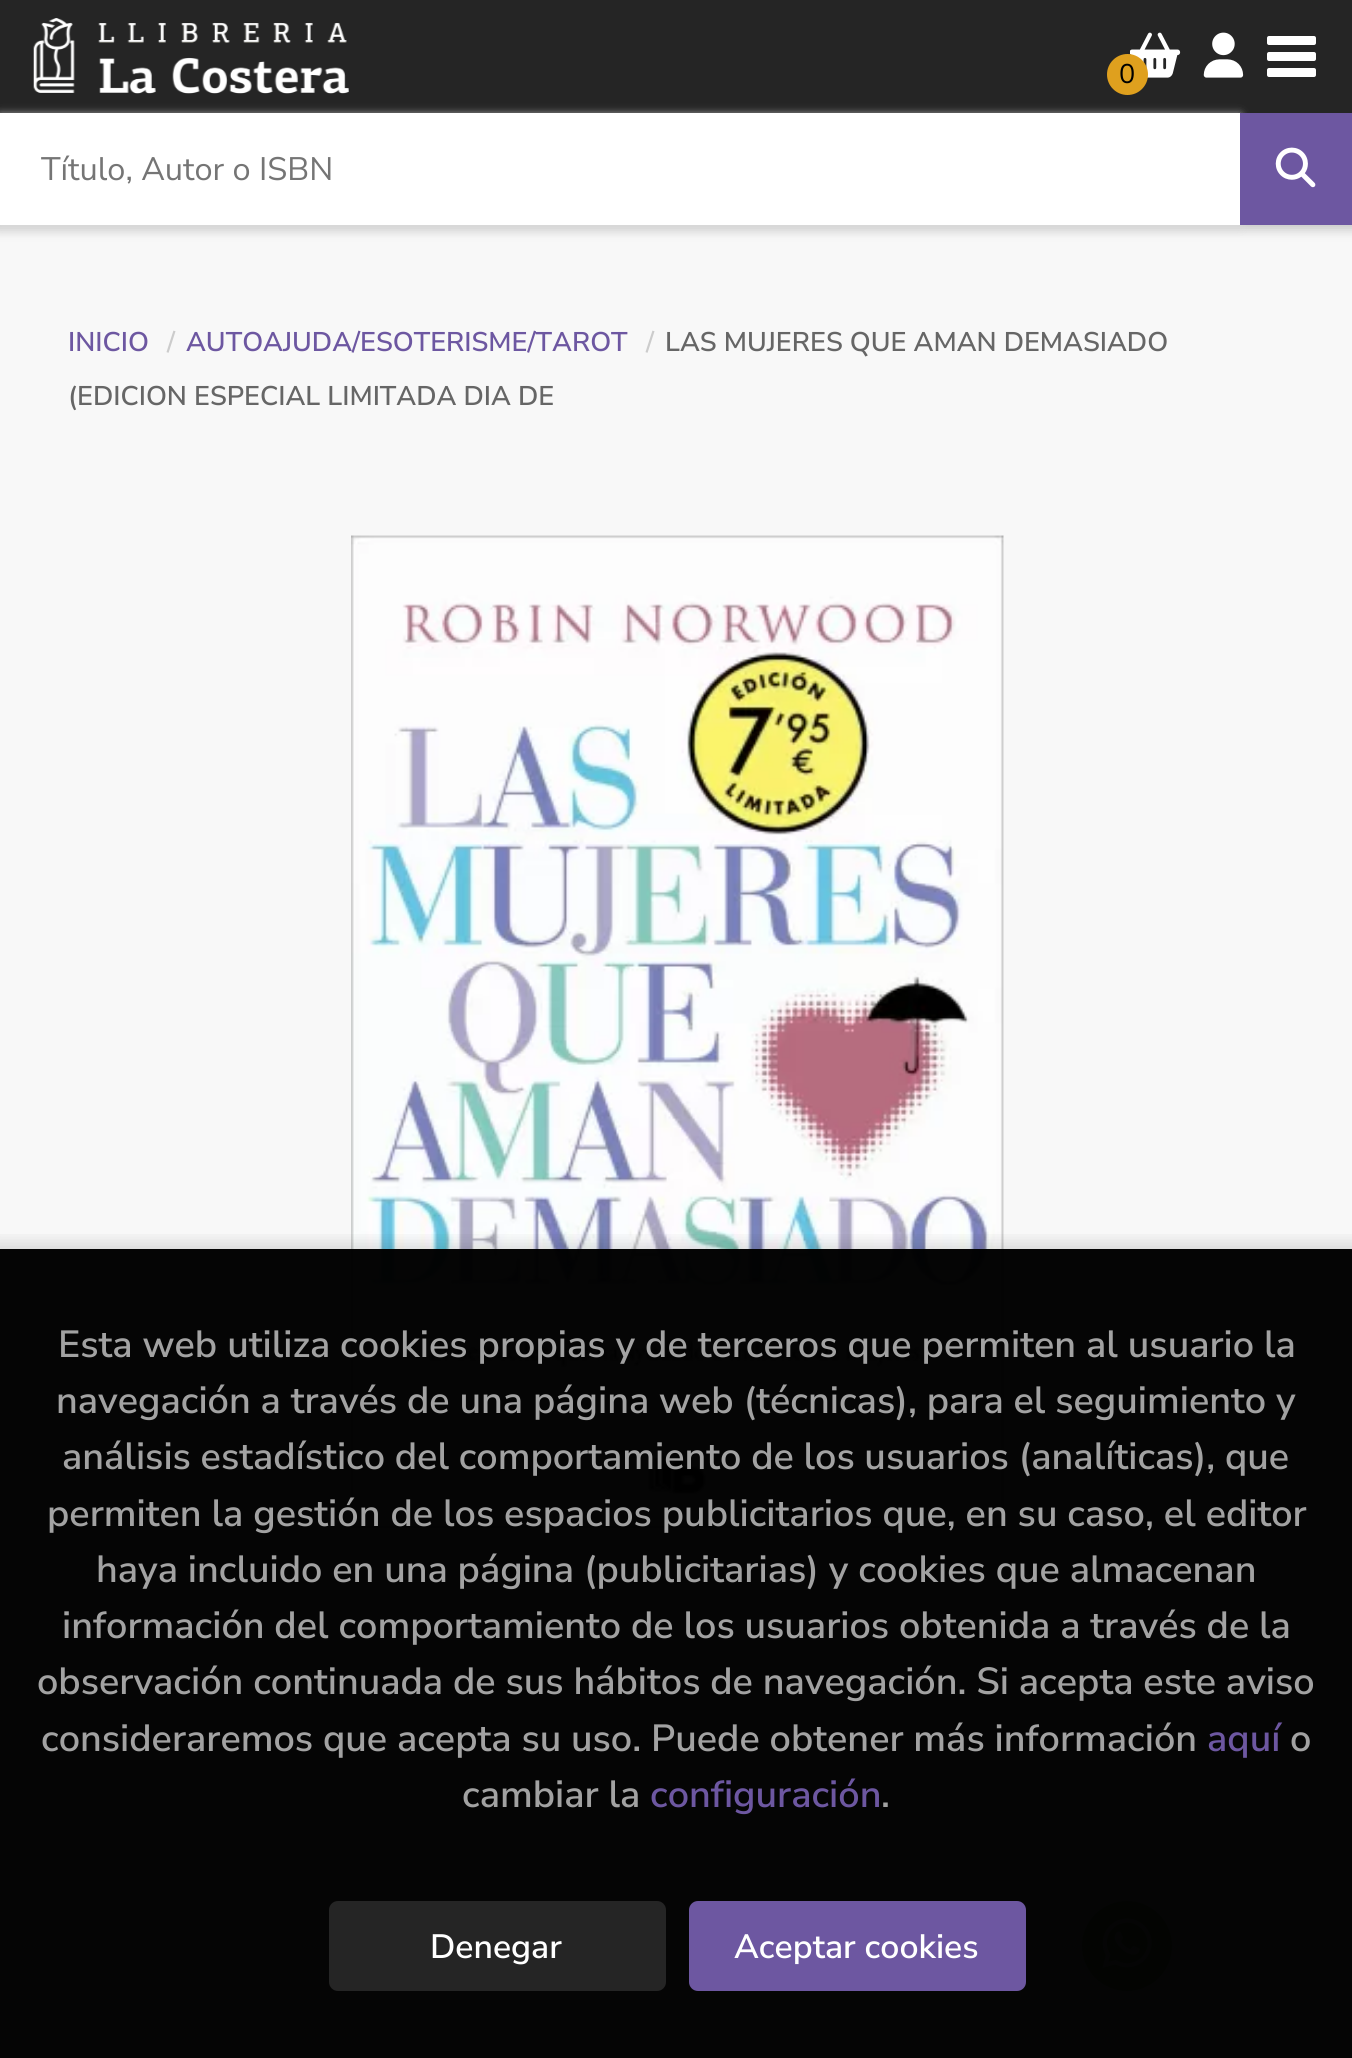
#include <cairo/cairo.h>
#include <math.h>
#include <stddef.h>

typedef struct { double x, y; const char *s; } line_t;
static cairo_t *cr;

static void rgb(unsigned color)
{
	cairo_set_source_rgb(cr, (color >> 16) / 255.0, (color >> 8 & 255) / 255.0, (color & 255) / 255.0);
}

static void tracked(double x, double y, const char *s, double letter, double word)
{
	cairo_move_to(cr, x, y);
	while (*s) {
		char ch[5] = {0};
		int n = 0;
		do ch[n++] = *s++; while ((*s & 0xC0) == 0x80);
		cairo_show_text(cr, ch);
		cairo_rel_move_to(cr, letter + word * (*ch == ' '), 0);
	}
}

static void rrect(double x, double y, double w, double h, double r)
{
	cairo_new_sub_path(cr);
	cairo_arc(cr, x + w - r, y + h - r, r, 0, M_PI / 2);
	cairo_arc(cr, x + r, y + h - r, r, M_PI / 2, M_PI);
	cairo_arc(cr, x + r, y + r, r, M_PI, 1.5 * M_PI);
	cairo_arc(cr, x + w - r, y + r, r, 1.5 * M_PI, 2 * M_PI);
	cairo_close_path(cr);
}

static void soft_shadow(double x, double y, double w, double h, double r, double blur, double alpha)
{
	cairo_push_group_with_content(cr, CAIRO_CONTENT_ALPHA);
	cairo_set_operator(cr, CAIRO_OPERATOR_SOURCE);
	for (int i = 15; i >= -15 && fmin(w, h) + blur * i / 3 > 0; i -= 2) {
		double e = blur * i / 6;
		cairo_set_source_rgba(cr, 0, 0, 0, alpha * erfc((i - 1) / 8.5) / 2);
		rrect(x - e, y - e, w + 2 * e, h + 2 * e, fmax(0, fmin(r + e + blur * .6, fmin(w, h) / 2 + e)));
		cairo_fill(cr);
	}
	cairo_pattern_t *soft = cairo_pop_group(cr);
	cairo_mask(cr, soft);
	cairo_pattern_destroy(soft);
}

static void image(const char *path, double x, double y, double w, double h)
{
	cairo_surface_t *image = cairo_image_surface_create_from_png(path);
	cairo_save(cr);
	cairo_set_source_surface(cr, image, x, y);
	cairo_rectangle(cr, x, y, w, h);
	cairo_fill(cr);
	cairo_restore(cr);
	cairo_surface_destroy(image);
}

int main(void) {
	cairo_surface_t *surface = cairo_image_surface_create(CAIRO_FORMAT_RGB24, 1352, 2058);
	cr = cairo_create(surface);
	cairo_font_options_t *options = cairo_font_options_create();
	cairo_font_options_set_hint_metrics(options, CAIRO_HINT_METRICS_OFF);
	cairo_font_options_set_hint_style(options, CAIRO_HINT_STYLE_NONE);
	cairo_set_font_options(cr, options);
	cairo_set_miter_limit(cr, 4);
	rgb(0xf8f8f8);
	cairo_paint(cr);
	rgb(0x000000);
	soft_shadow(-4, -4, 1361, 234, 0, 5.5, 0.2);
	rgb(0x252525);
	cairo_rectangle(cr, 0, 0, 1352, 113);
	cairo_fill(cr);
	image("img/1.png", 1130, 32, 51, 46);
	rgb(0xdfa01e);
	cairo_arc(cr, 1127.5, 74.5, 20.5, 0, 2 * M_PI);
	cairo_fill(cr);
	image("img/2.png", 1203, 32, 41, 46);
	rgb(0xffffff);
	rrect(1267, 36, 49, 9, 2);
	cairo_fill(cr);
	rrect(1267, 52, 49, 9, 2);
	cairo_fill(cr);
	rrect(1267, 68, 49, 9, 2);
	cairo_fill(cr);
	image("img/3.png", 33, 18, 316, 76);
	rgb(0xdcdcdc);
	soft_shadow(0, 115, 1240, 112, 0, 4.5, 1);
	rgb(0xffffff);
	cairo_rectangle(cr, 0, 113, 1240, 112);
	cairo_fill(cr);
	rgb(0x6d57a1);
	cairo_rectangle(cr, 1240, 113, 112, 112);
	cairo_fill(cr);
	image("img/4.png", 1275, 147, 41, 41);
	image("img/5.png", 351, 535, 653, 993);
	cairo_set_source_rgba(cr, 1, 1, 1, 0.8);
	cairo_rectangle(cr, 0, 1996, 1352, 62);
	cairo_fill(cr);
	rgb(0x8de079);
	cairo_arc(cr, 1127, 1946, 45, 0, 2 * M_PI);
	cairo_fill(cr);
	image("img/6.png", 1102, 1918, 50, 50);
	cairo_save(cr);
	cairo_rectangle(cr, 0, 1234, 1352, 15);
	cairo_clip(cr);
	rgb(0x000000);
	soft_shadow(-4, 1244, 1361, 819, 0, 9, 0.15);
	cairo_restore(cr);
	cairo_set_source_rgba(cr, 0, 0, 0, 0.98);
	cairo_rectangle(cr, 0, 1249, 1352, 809);
	cairo_fill(cr);
	rgb(0x252525);
	rrect(329, 1901, 337, 90, 9);
	cairo_fill(cr);
	rgb(0x6d57a1);
	rrect(689, 1901, 337, 90, 9);
	cairo_fill(cr);
	cairo_select_font_face(cr, "Nunito Sans", CAIRO_FONT_SLANT_NORMAL, CAIRO_FONT_WEIGHT_NORMAL);
	cairo_set_font_size(cr, 27);
	rgb(0x000000);
	cairo_move_to(cr, 1119, 83);
	cairo_show_text(cr, "0");
	cairo_save(cr);
	cairo_rectangle(cr, 41, 146, 1199, 45);
	cairo_clip(cr);
	cairo_set_font_size(cr, 32.5);
	rgb(0x757575);
	cairo_move_to(cr, 41, 180);
	cairo_show_text(cr, "Título, Autor o ISBN");
	cairo_restore(cr);
	cairo_select_font_face(cr, "Nunito Sans SemiBold", CAIRO_FONT_SLANT_NORMAL, CAIRO_FONT_WEIGHT_NORMAL);
	rgb(0x6d57a1);
	cairo_move_to(cr, 68, 351);
	cairo_show_text(cr, "INICIO");
	rgb(0xcccccc);
	cairo_move_to(cr, 167, 351);
	cairo_show_text(cr, "/");
	rgb(0x6d57a1);
	cairo_move_to(cr, 186, 351);
	cairo_show_text(cr, "AUTOAJUDA/ESOTERISME/TAROT");
	rgb(0xcccccc);
	cairo_move_to(cr, 646, 351);
	cairo_show_text(cr, "/");
	rgb(0x666666);
	cairo_move_to(cr, 665, 351);
	cairo_show_text(cr, "LAS MUJERES QUE AMAN DEMASIADO");
	cairo_move_to(cr, 68, 405);
	cairo_show_text(cr, "(EDICION ESPECIAL LIMITADA DIA DE");
	cairo_set_font_size(cr, 37.8);
	rgb(0xa2a2a2);
	cairo_move_to(cr, 58, 1357);
	cairo_show_text(cr, "Esta web utiliza");
	cairo_move_to(cr, 340, 1357);
	cairo_show_text(cr, "cookies propias y de terceros que permiten al usuario la");
	tracked(56, 1413, "navegación a través de una página web (técnicas), para el seguimiento y", 0, -0.1);
	tracked(62, 1469, "análisis estadístico del comportamiento de los usuarios (analíticas), que", 0, -0.25);
	cairo_move_to(cr, 47, 1526);
	cairo_show_text(cr, "permiten la gestión de los espacios publicitarios que, en su caso, el editor");
	{
		static const line_t items[] = {
			{96, 1582, "haya incluido en una página (publicitarias) y cookies que almacenan"},
			{62, 1638, "información del comportamiento de los usuarios obtenida a través de la"},
			{37, 1694, "observación continuada de sus hábitos de navegación. Si acepta este aviso"},
			{41, 1751, "consideraremos que acepta su uso. Puede obtener más información"},
		};
		for (size_t i = 0; i < sizeof items / sizeof *items; i++) {
			tracked(items[i].x, items[i].y, items[i].s, 0, -0.1);
		}
	}
	rgb(0x6d57a1);
	cairo_move_to(cr, 1207, 1751);
	cairo_show_text(cr, "aquí");
	rgb(0xa2a2a2);
	cairo_move_to(cr, 1290, 1751);
	cairo_show_text(cr, "o");
	cairo_move_to(cr, 462, 1807);
	cairo_show_text(cr, "cambiar la");
	rgb(0x6d57a1);
	cairo_move_to(cr, 650, 1807);
	cairo_show_text(cr, "configuración");
	rgb(0xa2a2a2);
	cairo_move_to(cr, 881, 1807);
	cairo_show_text(cr, ".");
	cairo_set_font_size(cr, 33.75);
	rgb(0xffffff);
	cairo_move_to(cr, 430, 1958);
	cairo_show_text(cr, "Denegar");
	cairo_move_to(cr, 734, 1958);
	cairo_show_text(cr, "Aceptar cookies");
	cairo_surface_write_to_png(surface, "page.png");
	cairo_font_options_destroy(options);
	cairo_destroy(cr);
	cairo_surface_destroy(surface);
	return 0;
}
